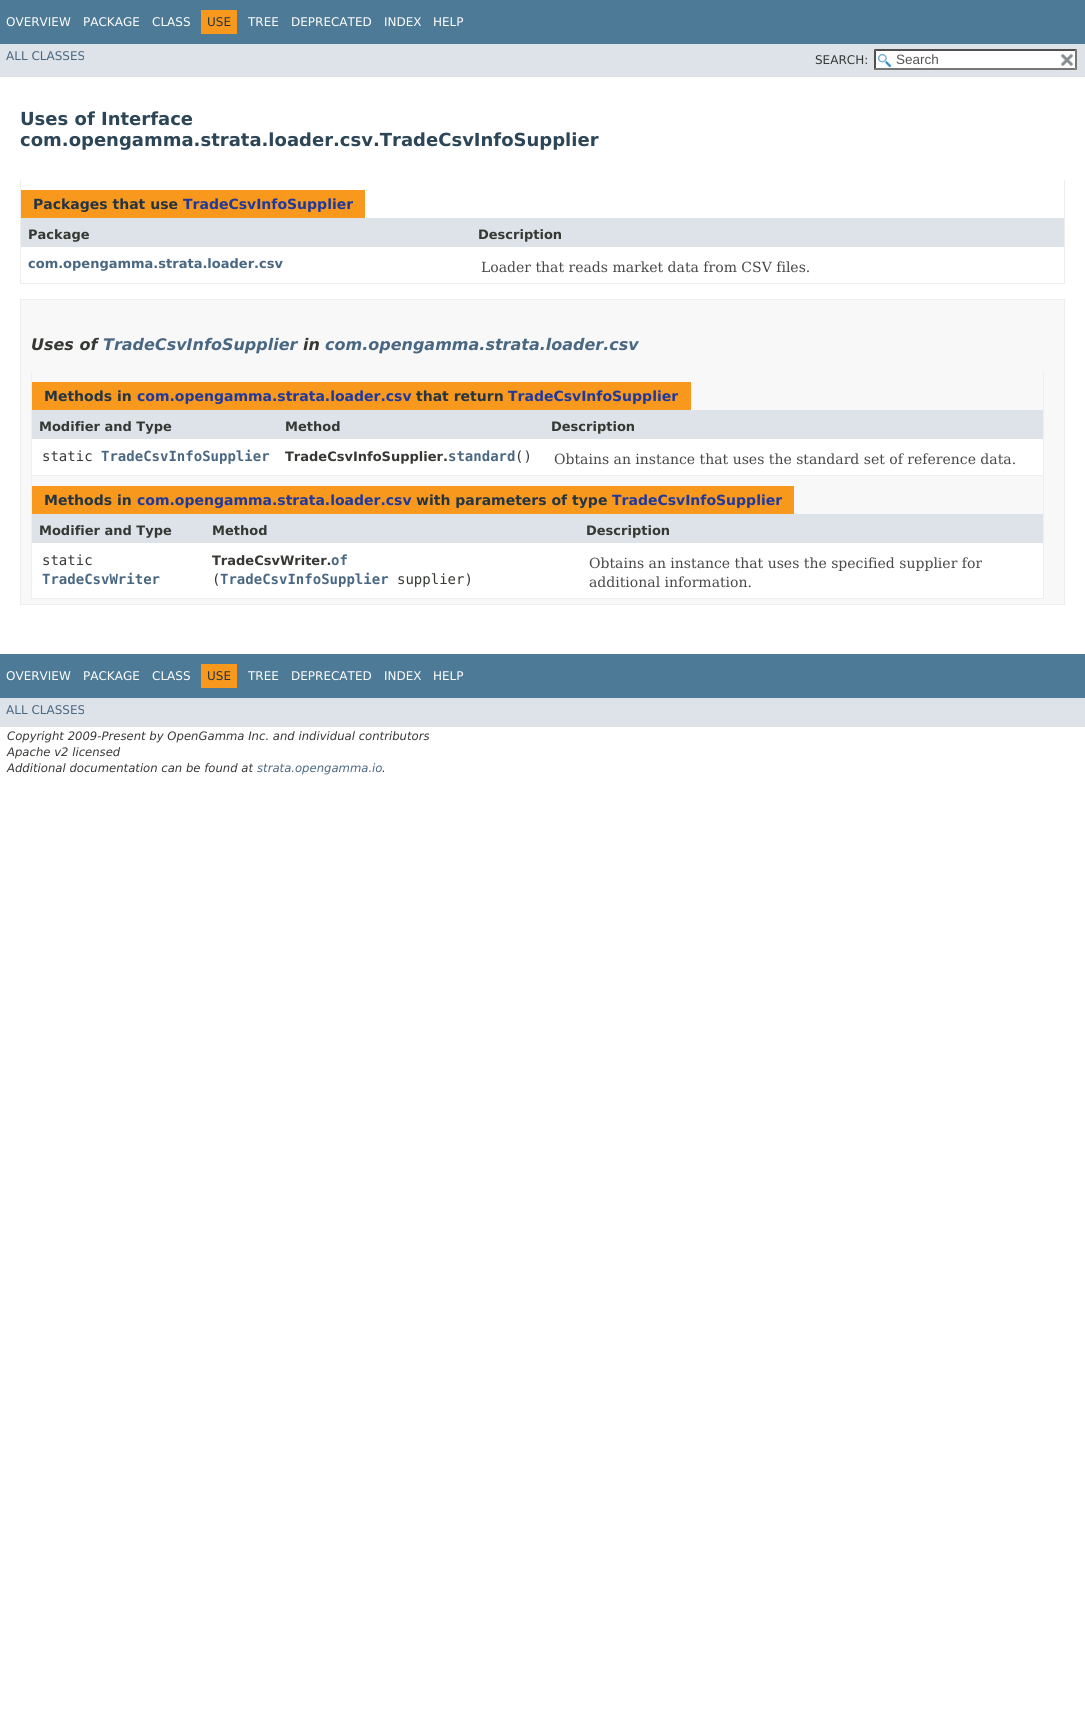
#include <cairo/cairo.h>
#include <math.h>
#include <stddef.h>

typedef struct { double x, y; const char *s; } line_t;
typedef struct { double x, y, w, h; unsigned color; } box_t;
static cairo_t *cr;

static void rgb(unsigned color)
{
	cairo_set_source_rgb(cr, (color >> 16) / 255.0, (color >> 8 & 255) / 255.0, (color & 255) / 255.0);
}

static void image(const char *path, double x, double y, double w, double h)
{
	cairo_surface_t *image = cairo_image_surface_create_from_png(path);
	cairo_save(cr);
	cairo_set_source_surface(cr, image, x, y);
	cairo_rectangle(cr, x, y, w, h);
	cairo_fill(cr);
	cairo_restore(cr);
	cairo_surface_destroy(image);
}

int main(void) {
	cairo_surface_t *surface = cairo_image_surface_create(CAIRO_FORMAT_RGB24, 1085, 1736);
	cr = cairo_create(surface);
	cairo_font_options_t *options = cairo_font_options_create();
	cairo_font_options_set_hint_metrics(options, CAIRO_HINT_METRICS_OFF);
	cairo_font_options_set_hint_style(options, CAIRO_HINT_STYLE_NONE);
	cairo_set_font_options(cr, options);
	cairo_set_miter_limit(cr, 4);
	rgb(0xffffff);
	cairo_paint(cr);
	{
		static const box_t items[] = {
			{0, 0, 1085, 44, 0x4d7a97},
			{201, 10, 36, 24, 0xf8981d},
			{0, 44, 1085, 33, 0xdee3e9},
			{874, 49, 203, 21, 0xffffff},
		};
		for (size_t i = 0; i < sizeof items / sizeof *items; i++) {
			rgb(items[i].color);
			cairo_rectangle(cr, items[i].x, items[i].y, items[i].w, items[i].h);
			cairo_fill(cr);
		}
	}
	image("img/1.png", 878, 54, 13, 13);
	rgb(0x4f4f4f);
	cairo_new_path(cr);
	cairo_move_to(cr, 874, 49);
	cairo_line_to(cr, 1077, 49);
	cairo_line_to(cr, 1075, 51);
	cairo_line_to(cr, 876, 51);
	cairo_close_path(cr);
	cairo_fill(cr);
	rgb(0x767676);
	cairo_new_path(cr);
	cairo_move_to(cr, 1077, 49);
	cairo_line_to(cr, 1077, 70);
	cairo_line_to(cr, 1075, 68);
	cairo_line_to(cr, 1075, 51);
	cairo_close_path(cr);
	cairo_fill(cr);
	cairo_new_path(cr);
	cairo_move_to(cr, 1077, 70);
	cairo_line_to(cr, 874, 70);
	cairo_line_to(cr, 876, 68);
	cairo_line_to(cr, 1075, 68);
	cairo_close_path(cr);
	cairo_fill(cr);
	rgb(0x4f4f4f);
	cairo_new_path(cr);
	cairo_move_to(cr, 874, 70);
	cairo_line_to(cr, 874, 49);
	cairo_line_to(cr, 876, 51);
	cairo_line_to(cr, 876, 68);
	cairo_close_path(cr);
	cairo_fill(cr);
	image("img/2.png", 1060, 54, 14, 12);
	{
		static const box_t items[] = {
			{1064, 180, 1, 104, 0xeeeeee},
			{20, 283, 1045, 1, 0xeeeeee},
			{20, 180, 1, 104, 0xeeeeee},
			{21, 190, 344, 28, 0xf8981d},
			{21, 218, 1043, 29, 0xdee3e9},
		};
		for (size_t i = 0; i < sizeof items / sizeof *items; i++) {
			rgb(items[i].color);
			cairo_rectangle(cr, items[i].x, items[i].y, items[i].w, items[i].h);
			cairo_fill(cr);
		}
	}
	rgb(0xf8f8f8);
	cairo_rectangle(cr, 20.5, 299.5, 1044, 305);
	cairo_fill_preserve(cr);
	rgb(0xededed);
	cairo_set_line_width(cr, 1);
	cairo_stroke(cr);
	{
		static const box_t items[] = {
			{1043, 372, 1, 227, 0xeeeeee},
			{31, 475, 1013, 1, 0xeeeeee},
			{31, 372, 1, 104, 0xeeeeee},
			{32, 382, 659, 28, 0xf8981d},
			{32, 410, 1011, 29, 0xdee3e9},
			{32, 439, 1011, 36, 0xffffff},
			{31, 598, 1013, 1, 0xeeeeee},
			{31, 476, 1, 123, 0xeeeeee},
			{32, 486, 762, 28, 0xf8981d},
			{32, 514, 1011, 29, 0xdee3e9},
			{32, 543, 1011, 55, 0xffffff},
			{0, 654, 1085, 44, 0x4d7a97},
			{201, 664, 36, 24, 0xf8981d},
			{0, 698, 1085, 29, 0xdee3e9},
		};
		for (size_t i = 0; i < sizeof items / sizeof *items; i++) {
			rgb(items[i].color);
			cairo_rectangle(cr, items[i].x, items[i].y, items[i].w, items[i].h);
			cairo_fill(cr);
		}
	}
	cairo_select_font_face(cr, "DejaVu Sans", CAIRO_FONT_SLANT_NORMAL, CAIRO_FONT_WEIGHT_NORMAL);
	cairo_set_font_size(cr, 12);
	rgb(0xffffff);
	{
		static const line_t items[] = {
			{6, 26, "OVERVIEW"},
			{83, 26, "PACKAGE"},
			{152, 26, "CLASS"},
		};
		for (size_t i = 0; i < sizeof items / sizeof *items; i++) {
			cairo_move_to(cr, items[i].x, items[i].y);
			cairo_show_text(cr, items[i].s);
		}
	}
	rgb(0x253441);
	cairo_move_to(cr, 207, 26);
	cairo_show_text(cr, "USE");
	rgb(0xffffff);
	{
		static const line_t items[] = {
			{248, 26, "TREE"},
			{291, 26, "DEPRECATED"},
			{384, 26, "INDEX"},
			{433, 26, "HELP"},
		};
		for (size_t i = 0; i < sizeof items / sizeof *items; i++) {
			cairo_move_to(cr, items[i].x, items[i].y);
			cairo_show_text(cr, items[i].s);
		}
	}
	rgb(0x4a6782);
	cairo_move_to(cr, 6, 60);
	cairo_show_text(cr, "ALL CLASSES");
	rgb(0x353833);
	cairo_move_to(cr, 815, 64);
	cairo_show_text(cr, "SEARCH:");
	cairo_select_font_face(cr, "Liberation Sans", CAIRO_FONT_SLANT_NORMAL, CAIRO_FONT_WEIGHT_NORMAL);
	cairo_set_font_size(cr, 13.5);
	rgb(0x545454);
	cairo_move_to(cr, 896, 64);
	cairo_show_text(cr, "Search");
	cairo_select_font_face(cr, "DejaVu Sans", CAIRO_FONT_SLANT_NORMAL, CAIRO_FONT_WEIGHT_BOLD);
	cairo_set_font_size(cr, 18);
	rgb(0x2c4557);
	cairo_move_to(cr, 20, 125);
	cairo_show_text(cr, "Uses of Interface");
	cairo_move_to(cr, 20, 146);
	cairo_show_text(cr, "com.opengamma.strata.loader.csv.TradeCsvInfoSupplier");
	cairo_set_font_size(cr, 14);
	rgb(0x253441);
	cairo_move_to(cr, 33, 209);
	cairo_show_text(cr, "Packages that use");
	rgb(0x1f389c);
	cairo_move_to(cr, 183, 209);
	cairo_show_text(cr, "TradeCsvInfoSupplier");
	cairo_set_font_size(cr, 13);
	rgb(0x353833);
	cairo_move_to(cr, 28, 239);
	cairo_show_text(cr, "Package");
	cairo_move_to(cr, 478, 239);
	cairo_show_text(cr, "Description");
	rgb(0x4a6782);
	cairo_move_to(cr, 28, 268);
	cairo_show_text(cr, "com.opengamma.strata.loader.csv");
	cairo_select_font_face(cr, "DejaVu Serif", CAIRO_FONT_SLANT_NORMAL, CAIRO_FONT_WEIGHT_NORMAL);
	cairo_set_font_size(cr, 14);
	rgb(0x474747);
	cairo_move_to(cr, 481, 272);
	cairo_show_text(cr, "Loader that reads market data from CSV files.");
	cairo_select_font_face(cr, "DejaVu Sans", CAIRO_FONT_SLANT_ITALIC, CAIRO_FONT_WEIGHT_BOLD);
	cairo_set_font_size(cr, 16);
	rgb(0x353833);
	cairo_move_to(cr, 31, 350);
	cairo_show_text(cr, "Uses of");
	rgb(0x4a6782);
	cairo_move_to(cr, 103, 350);
	cairo_show_text(cr, "TradeCsvInfoSupplier");
	rgb(0x353833);
	cairo_move_to(cr, 303, 350);
	cairo_show_text(cr, "in");
	rgb(0x4a6782);
	cairo_move_to(cr, 325, 350);
	cairo_show_text(cr, "com.opengamma.strata.loader.csv");
	cairo_select_font_face(cr, "DejaVu Sans", CAIRO_FONT_SLANT_NORMAL, CAIRO_FONT_WEIGHT_BOLD);
	cairo_set_font_size(cr, 14);
	rgb(0x253441);
	cairo_move_to(cr, 44, 401);
	cairo_show_text(cr, "Methods in");
	rgb(0x1f389c);
	cairo_move_to(cr, 137, 401);
	cairo_show_text(cr, "com.opengamma.strata.loader.csv");
	rgb(0x253441);
	cairo_move_to(cr, 416, 401);
	cairo_show_text(cr, "that return");
	rgb(0x1f389c);
	cairo_move_to(cr, 508, 401);
	cairo_show_text(cr, "TradeCsvInfoSupplier");
	cairo_set_font_size(cr, 13);
	rgb(0x353833);
	{
		static const line_t items[] = {
			{39, 431, "Modifier and Type"},
			{285, 431, "Method"},
			{551, 431, "Description"},
		};
		for (size_t i = 0; i < sizeof items / sizeof *items; i++) {
			cairo_move_to(cr, items[i].x, items[i].y);
			cairo_show_text(cr, items[i].s);
		}
	}
	cairo_select_font_face(cr, "DejaVu Sans Mono", CAIRO_FONT_SLANT_NORMAL, CAIRO_FONT_WEIGHT_NORMAL);
	cairo_set_font_size(cr, 14);
	cairo_move_to(cr, 42, 461);
	cairo_show_text(cr, "static");
	cairo_select_font_face(cr, "DejaVu Sans Mono", CAIRO_FONT_SLANT_NORMAL, CAIRO_FONT_WEIGHT_BOLD);
	rgb(0x4a6782);
	cairo_move_to(cr, 101, 461);
	cairo_show_text(cr, "TradeCsvInfoSupplier");
	cairo_select_font_face(cr, "DejaVu Sans", CAIRO_FONT_SLANT_NORMAL, CAIRO_FONT_WEIGHT_BOLD);
	cairo_set_font_size(cr, 13);
	rgb(0x353833);
	cairo_move_to(cr, 285, 461);
	cairo_show_text(cr, "TradeCsvInfoSupplier.");
	cairo_select_font_face(cr, "DejaVu Sans Mono", CAIRO_FONT_SLANT_NORMAL, CAIRO_FONT_WEIGHT_BOLD);
	cairo_set_font_size(cr, 14);
	rgb(0x4a6782);
	cairo_move_to(cr, 448, 461);
	cairo_show_text(cr, "standard");
	cairo_select_font_face(cr, "DejaVu Sans Mono", CAIRO_FONT_SLANT_NORMAL, CAIRO_FONT_WEIGHT_NORMAL);
	rgb(0x353833);
	cairo_move_to(cr, 515, 461);
	cairo_show_text(cr, "()");
	cairo_select_font_face(cr, "DejaVu Serif", CAIRO_FONT_SLANT_NORMAL, CAIRO_FONT_WEIGHT_NORMAL);
	rgb(0x474747);
	cairo_move_to(cr, 554, 464);
	cairo_show_text(cr, "Obtains an instance that uses the standard set of reference data.");
	cairo_select_font_face(cr, "DejaVu Sans", CAIRO_FONT_SLANT_NORMAL, CAIRO_FONT_WEIGHT_BOLD);
	rgb(0x253441);
	cairo_move_to(cr, 44, 505);
	cairo_show_text(cr, "Methods in");
	rgb(0x1f389c);
	cairo_move_to(cr, 137, 505);
	cairo_show_text(cr, "com.opengamma.strata.loader.csv");
	rgb(0x253441);
	cairo_move_to(cr, 416, 505);
	cairo_show_text(cr, "with parameters of type");
	rgb(0x1f389c);
	cairo_move_to(cr, 612, 505);
	cairo_show_text(cr, "TradeCsvInfoSupplier");
	cairo_set_font_size(cr, 13);
	rgb(0x353833);
	{
		static const line_t items[] = {
			{39, 535, "Modifier and Type"},
			{212, 535, "Method"},
			{586, 535, "Description"},
		};
		for (size_t i = 0; i < sizeof items / sizeof *items; i++) {
			cairo_move_to(cr, items[i].x, items[i].y);
			cairo_show_text(cr, items[i].s);
		}
	}
	cairo_select_font_face(cr, "DejaVu Sans Mono", CAIRO_FONT_SLANT_NORMAL, CAIRO_FONT_WEIGHT_NORMAL);
	cairo_set_font_size(cr, 14);
	cairo_move_to(cr, 42, 565);
	cairo_show_text(cr, "static");
	cairo_select_font_face(cr, "DejaVu Sans Mono", CAIRO_FONT_SLANT_NORMAL, CAIRO_FONT_WEIGHT_BOLD);
	rgb(0x4a6782);
	cairo_move_to(cr, 42, 584);
	cairo_show_text(cr, "TradeCsvWriter");
	cairo_select_font_face(cr, "DejaVu Sans", CAIRO_FONT_SLANT_NORMAL, CAIRO_FONT_WEIGHT_BOLD);
	cairo_set_font_size(cr, 13);
	rgb(0x353833);
	cairo_move_to(cr, 212, 565);
	cairo_show_text(cr, "TradeCsvWriter.");
	cairo_select_font_face(cr, "DejaVu Sans Mono", CAIRO_FONT_SLANT_NORMAL, CAIRO_FONT_WEIGHT_BOLD);
	cairo_set_font_size(cr, 14);
	rgb(0x4a6782);
	cairo_move_to(cr, 331, 565);
	cairo_show_text(cr, "of");
	cairo_select_font_face(cr, "DejaVu Sans Mono", CAIRO_FONT_SLANT_NORMAL, CAIRO_FONT_WEIGHT_NORMAL);
	rgb(0x353833);
	cairo_move_to(cr, 212, 584);
	cairo_show_text(cr, "(");
	cairo_select_font_face(cr, "DejaVu Sans Mono", CAIRO_FONT_SLANT_NORMAL, CAIRO_FONT_WEIGHT_BOLD);
	rgb(0x4a6782);
	cairo_move_to(cr, 220, 584);
	cairo_show_text(cr, "TradeCsvInfoSupplier");
	cairo_select_font_face(cr, "DejaVu Sans Mono", CAIRO_FONT_SLANT_NORMAL, CAIRO_FONT_WEIGHT_NORMAL);
	rgb(0x353833);
	cairo_move_to(cr, 397, 584);
	cairo_show_text(cr, "supplier)");
	cairo_select_font_face(cr, "DejaVu Serif", CAIRO_FONT_SLANT_NORMAL, CAIRO_FONT_WEIGHT_NORMAL);
	rgb(0x474747);
	cairo_move_to(cr, 589, 568);
	cairo_show_text(cr, "Obtains an instance that uses the specified supplier for");
	cairo_move_to(cr, 589, 587);
	cairo_show_text(cr, "additional information.");
	cairo_select_font_face(cr, "DejaVu Sans", CAIRO_FONT_SLANT_NORMAL, CAIRO_FONT_WEIGHT_NORMAL);
	cairo_set_font_size(cr, 12);
	rgb(0xffffff);
	{
		static const line_t items[] = {
			{6, 680, "OVERVIEW"},
			{83, 680, "PACKAGE"},
			{152, 680, "CLASS"},
		};
		for (size_t i = 0; i < sizeof items / sizeof *items; i++) {
			cairo_move_to(cr, items[i].x, items[i].y);
			cairo_show_text(cr, items[i].s);
		}
	}
	rgb(0x253441);
	cairo_move_to(cr, 207, 680);
	cairo_show_text(cr, "USE");
	rgb(0xffffff);
	{
		static const line_t items[] = {
			{248, 680, "TREE"},
			{291, 680, "DEPRECATED"},
			{384, 680, "INDEX"},
			{433, 680, "HELP"},
		};
		for (size_t i = 0; i < sizeof items / sizeof *items; i++) {
			cairo_move_to(cr, items[i].x, items[i].y);
			cairo_show_text(cr, items[i].s);
		}
	}
	rgb(0x4a6782);
	cairo_move_to(cr, 6, 714);
	cairo_show_text(cr, "ALL CLASSES");
	cairo_select_font_face(cr, "DejaVu Sans", CAIRO_FONT_SLANT_ITALIC, CAIRO_FONT_WEIGHT_NORMAL);
	cairo_set_font_size(cr, 11.65);
	rgb(0x353833);
	{
		static const line_t items[] = {
			{7, 740, "Copyright 2009-Present by OpenGamma Inc. and individual contributors"},
			{7, 756, "Apache v2 licensed"},
			{7, 772, "Additional documentation can be found at"},
		};
		for (size_t i = 0; i < sizeof items / sizeof *items; i++) {
			cairo_move_to(cr, items[i].x, items[i].y);
			cairo_show_text(cr, items[i].s);
		}
	}
	rgb(0x4a6782);
	cairo_move_to(cr, 257, 772);
	cairo_show_text(cr, "strata.opengamma.io");
	rgb(0x353833);
	cairo_move_to(cr, 382, 772);
	cairo_show_text(cr, ".");
	cairo_surface_write_to_png(surface, "page.png");
	cairo_font_options_destroy(options);
	cairo_destroy(cr);
	cairo_surface_destroy(surface);
	return 0;
}
